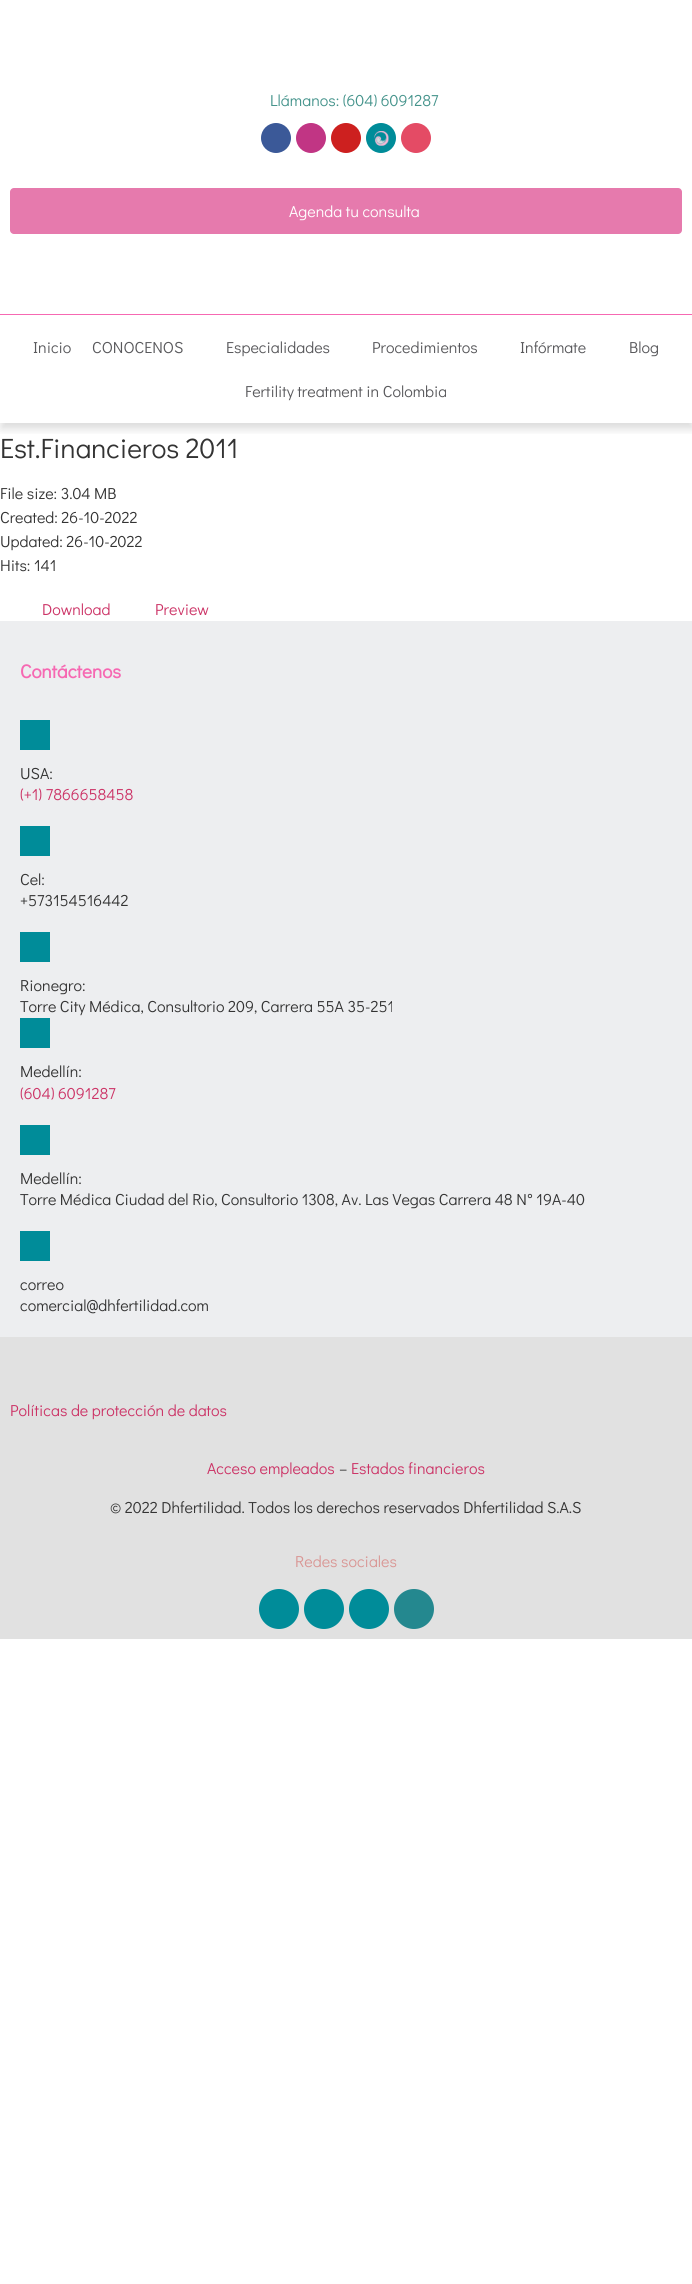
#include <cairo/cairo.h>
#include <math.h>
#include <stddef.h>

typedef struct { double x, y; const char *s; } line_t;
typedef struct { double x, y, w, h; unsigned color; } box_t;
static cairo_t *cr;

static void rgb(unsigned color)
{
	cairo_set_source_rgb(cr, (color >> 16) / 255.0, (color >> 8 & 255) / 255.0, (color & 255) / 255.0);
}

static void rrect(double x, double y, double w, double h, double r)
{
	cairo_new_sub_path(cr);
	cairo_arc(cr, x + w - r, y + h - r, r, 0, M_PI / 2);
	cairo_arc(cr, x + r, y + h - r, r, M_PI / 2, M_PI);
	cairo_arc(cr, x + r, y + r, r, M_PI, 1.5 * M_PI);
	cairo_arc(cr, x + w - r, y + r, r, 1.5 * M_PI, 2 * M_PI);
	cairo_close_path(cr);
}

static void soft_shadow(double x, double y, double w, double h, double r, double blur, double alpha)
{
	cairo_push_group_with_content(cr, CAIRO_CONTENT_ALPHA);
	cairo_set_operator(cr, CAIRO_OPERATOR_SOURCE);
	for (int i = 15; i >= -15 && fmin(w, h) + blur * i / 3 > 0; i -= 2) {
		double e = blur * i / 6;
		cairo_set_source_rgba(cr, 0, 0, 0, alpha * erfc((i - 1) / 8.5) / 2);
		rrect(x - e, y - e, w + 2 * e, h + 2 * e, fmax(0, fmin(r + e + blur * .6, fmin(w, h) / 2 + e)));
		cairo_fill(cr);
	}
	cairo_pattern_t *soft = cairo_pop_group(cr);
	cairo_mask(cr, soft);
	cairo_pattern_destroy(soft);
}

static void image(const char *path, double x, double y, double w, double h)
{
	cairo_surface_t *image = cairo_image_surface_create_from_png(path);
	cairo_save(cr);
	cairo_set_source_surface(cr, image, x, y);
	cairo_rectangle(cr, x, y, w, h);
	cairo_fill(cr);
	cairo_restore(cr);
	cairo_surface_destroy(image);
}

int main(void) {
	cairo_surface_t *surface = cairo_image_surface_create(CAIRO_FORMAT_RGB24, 692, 2284);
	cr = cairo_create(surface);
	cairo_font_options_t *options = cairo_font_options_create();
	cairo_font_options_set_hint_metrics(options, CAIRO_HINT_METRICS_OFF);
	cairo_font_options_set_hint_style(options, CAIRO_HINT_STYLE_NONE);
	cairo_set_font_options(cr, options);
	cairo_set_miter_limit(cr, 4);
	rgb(0xffffff);
	cairo_paint(cr);
	rgb(0x3b5998);
	cairo_arc(cr, 276, 138, 15, 0, 2 * M_PI);
	cairo_fill(cr);
	rgb(0xc13584);
	cairo_arc(cr, 311, 138, 15, 0, 2 * M_PI);
	cairo_fill(cr);
	rgb(0xcd201f);
	cairo_arc(cr, 346, 138, 15, 0, 2 * M_PI);
	cairo_fill(cr);
	rgb(0x008c99);
	cairo_arc(cr, 381, 138, 15, 0, 2 * M_PI);
	cairo_fill(cr);
	image("img/1.png", 374, 131, 15, 15);
	rgb(0xe44b65);
	cairo_arc(cr, 416, 138, 15, 0, 2 * M_PI);
	cairo_fill(cr);
	rgb(0xe67aad);
	rrect(10, 188, 672, 46, 4);
	cairo_fill(cr);
	cairo_save(cr);
	cairo_rectangle(cr, 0, 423, 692, 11);
	cairo_clip(cr);
	rgb(0x000000);
	soft_shadow(1, 320, 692, 109, 0, 4.5, 0.14);
	cairo_restore(cr);
	{
		static const box_t items[] = {
			{0, 314, 692, 1, 0xf668b2},
			{0, 621, 692, 716, 0xedeef0},
			{20, 720, 30, 30, 0x008c99},
			{20, 826, 30, 30, 0x008c99},
			{20, 932, 30, 30, 0x008c99},
			{20, 1018, 30, 30, 0x008c99},
			{20, 1125, 30, 30, 0x008c99},
			{20, 1231, 30, 30, 0x008c99},
			{0, 1337, 692, 302, 0xe1e1e1},
		};
		for (size_t i = 0; i < sizeof items / sizeof *items; i++) {
			rgb(items[i].color);
			cairo_rectangle(cr, items[i].x, items[i].y, items[i].w, items[i].h);
			cairo_fill(cr);
		}
	}
	rgb(0x008c99);
	cairo_arc(cr, 279, 1609, 20, 0, 2 * M_PI);
	cairo_fill(cr);
	cairo_arc(cr, 324, 1609, 20, 0, 2 * M_PI);
	cairo_fill(cr);
	cairo_arc(cr, 369, 1609, 20, 0, 2 * M_PI);
	cairo_fill(cr);
	rgb(0x24888f);
	cairo_arc(cr, 414, 1609, 20, 0, 2 * M_PI);
	cairo_fill(cr);
	cairo_select_font_face(cr, "Didact Gothic", CAIRO_FONT_SLANT_NORMAL, CAIRO_FONT_WEIGHT_NORMAL);
	cairo_set_font_size(cr, 16);
	rgb(0x44938b);
	cairo_move_to(cr, 270, 106);
	cairo_show_text(cr, "Llámanos: (604) 6091287");
	rgb(0xffffff);
	cairo_move_to(cr, 289, 217);
	cairo_show_text(cr, "Agenda tu consulta");
	rgb(0x58585b);
	{
		static const line_t items[] = {
			{33, 353, "Inicio"},
			{92, 353, "CONOCENOS"},
			{226, 353, "Especialidades"},
			{372, 353, "Procedimientos"},
			{520, 353, "Infórmate"},
			{629, 353, "Blog"},
			{245, 397, "Fertility treatment in Colombia"},
		};
		for (size_t i = 0; i < sizeof items / sizeof *items; i++) {
			cairo_move_to(cr, items[i].x, items[i].y);
			cairo_show_text(cr, items[i].s);
		}
	}
	cairo_set_font_size(cr, 28);
	rgb(0x333333);
	cairo_move_to(cr, 0, 458);
	cairo_show_text(cr, "Est.Financieros 2011");
	cairo_set_font_size(cr, 16);
	{
		static const line_t items[] = {
			{0, 499, "File size: 3.04 MB"},
			{0, 523, "Created: 26-10-2022"},
			{0, 547, "Updated: 26-10-2022"},
			{0, 571, "Hits: 141"},
		};
		for (size_t i = 0; i < sizeof items / sizeof *items; i++) {
			cairo_move_to(cr, items[i].x, items[i].y);
			cairo_show_text(cr, items[i].s);
		}
	}
	rgb(0xcc3366);
	cairo_move_to(cr, 42, 615);
	cairo_show_text(cr, "Download");
	cairo_move_to(cr, 155, 615);
	cairo_show_text(cr, "Preview");
	cairo_select_font_face(cr, "Didact Gothic", CAIRO_FONT_SLANT_NORMAL, CAIRO_FONT_WEIGHT_BOLD);
	cairo_set_font_size(cr, 19);
	rgb(0xf668b2);
	cairo_move_to(cr, 20, 678);
	cairo_show_text(cr, "Contáctenos");
	cairo_select_font_face(cr, "Didact Gothic", CAIRO_FONT_SLANT_NORMAL, CAIRO_FONT_WEIGHT_NORMAL);
	cairo_set_font_size(cr, 16);
	rgb(0x333333);
	cairo_move_to(cr, 20, 779);
	cairo_show_text(cr, "USA:");
	rgb(0xcc3366);
	cairo_move_to(cr, 20, 800);
	cairo_show_text(cr, "(+1) 7866658458");
	rgb(0x333333);
	{
		static const line_t items[] = {
			{20, 885, "Cel:"},
			{20, 906, "+573154516442"},
			{20, 991, "Rionegro:"},
			{20, 1012, "Torre City Médica, Consultorio 209, Carrera 55A 35-251"},
			{20, 1077, "Medellín:"},
		};
		for (size_t i = 0; i < sizeof items / sizeof *items; i++) {
			cairo_move_to(cr, items[i].x, items[i].y);
			cairo_show_text(cr, items[i].s);
		}
	}
	rgb(0xcc3366);
	cairo_move_to(cr, 20, 1099);
	cairo_show_text(cr, "(604) 6091287");
	rgb(0x333333);
	{
		static const line_t items[] = {
			{20, 1184, "Medellín:"},
			{20, 1205, "Torre Médica Ciudad del Rio, Consultorio 1308, Av. Las Vegas Carrera 48 N° 19A-40"},
			{20, 1290, "correo"},
			{20, 1311, "comercial@dhfertilidad.com"},
		};
		for (size_t i = 0; i < sizeof items / sizeof *items; i++) {
			cairo_move_to(cr, items[i].x, items[i].y);
			cairo_show_text(cr, items[i].s);
		}
	}
	rgb(0xcc3366);
	cairo_move_to(cr, 10, 1416);
	cairo_show_text(cr, "Políticas de protección de datos");
	cairo_move_to(cr, 207, 1474);
	cairo_show_text(cr, "Acceso empleados");
	rgb(0x333333);
	cairo_move_to(cr, 339, 1474);
	cairo_show_text(cr, "–");
	rgb(0xcc3366);
	cairo_move_to(cr, 351, 1474);
	cairo_show_text(cr, "Estados financieros");
	rgb(0x333333);
	cairo_move_to(cr, 110, 1513);
	cairo_show_text(cr, "© 2022 Dhfertilidad. Todos los derechos reservados Dhfertilidad S.A.S");
	rgb(0xd99694);
	cairo_move_to(cr, 295, 1567);
	cairo_show_text(cr, "Redes sociales");
	cairo_surface_write_to_png(surface, "page.png");
	cairo_font_options_destroy(options);
	cairo_destroy(cr);
	cairo_surface_destroy(surface);
	return 0;
}
